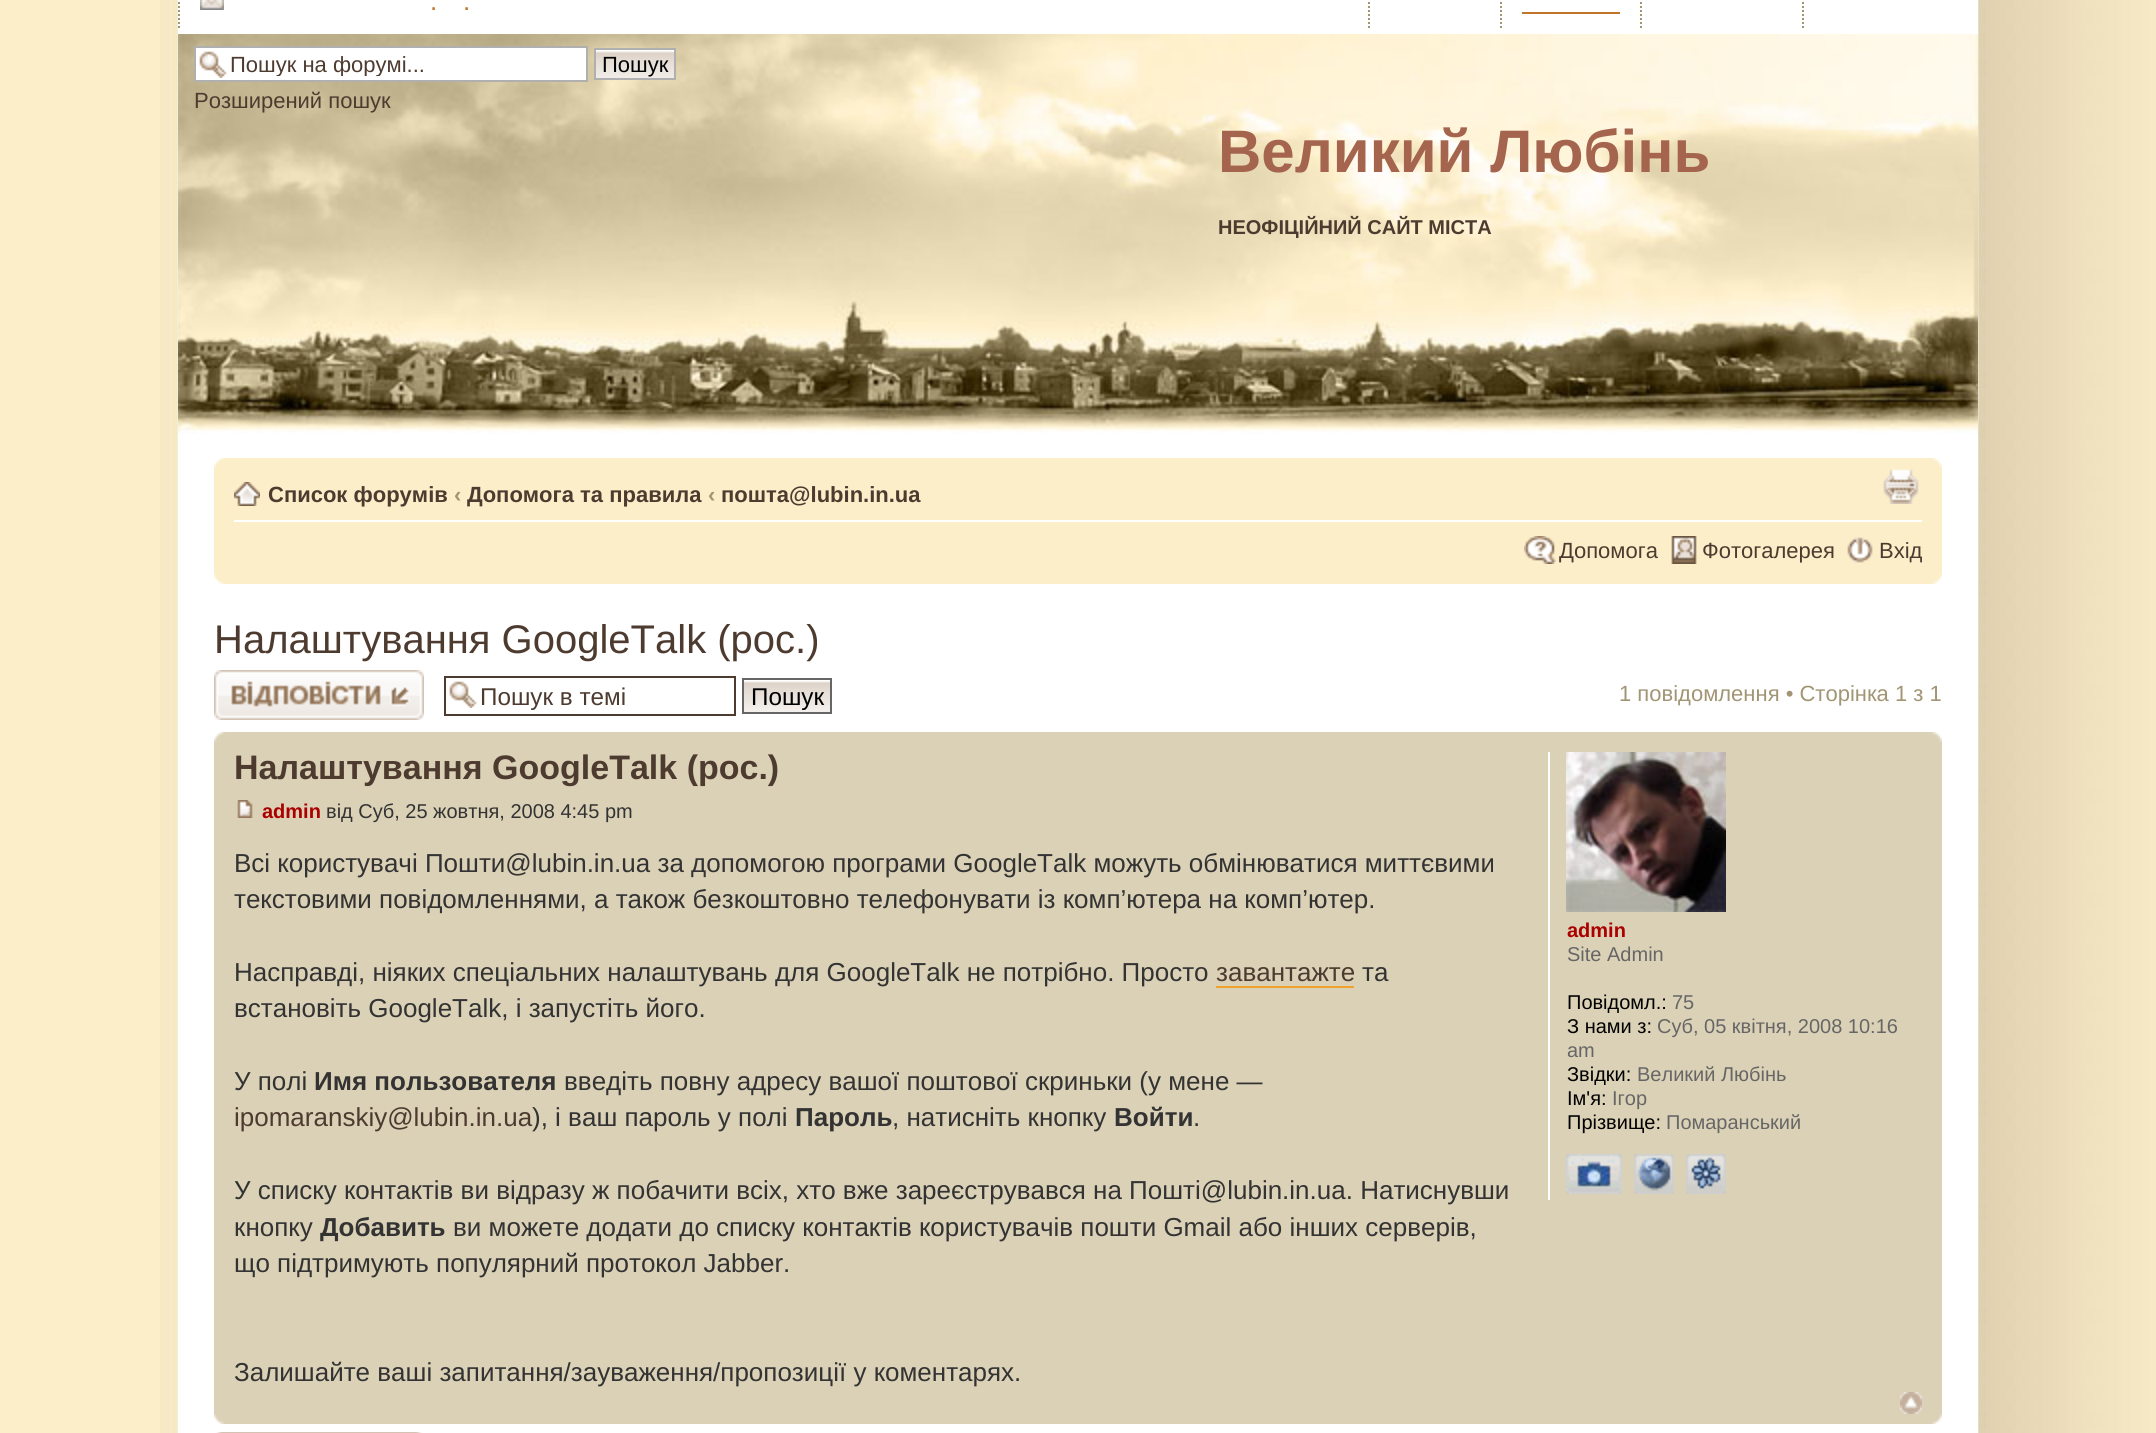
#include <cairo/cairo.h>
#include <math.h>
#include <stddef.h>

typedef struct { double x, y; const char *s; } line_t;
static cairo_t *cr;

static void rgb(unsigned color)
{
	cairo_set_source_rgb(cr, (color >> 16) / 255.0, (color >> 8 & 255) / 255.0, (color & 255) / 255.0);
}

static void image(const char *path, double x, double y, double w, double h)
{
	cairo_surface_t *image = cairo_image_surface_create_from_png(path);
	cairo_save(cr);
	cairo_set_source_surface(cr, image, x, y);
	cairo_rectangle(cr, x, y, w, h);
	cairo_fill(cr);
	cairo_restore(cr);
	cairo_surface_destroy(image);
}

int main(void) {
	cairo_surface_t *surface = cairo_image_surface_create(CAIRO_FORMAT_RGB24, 2156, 1433);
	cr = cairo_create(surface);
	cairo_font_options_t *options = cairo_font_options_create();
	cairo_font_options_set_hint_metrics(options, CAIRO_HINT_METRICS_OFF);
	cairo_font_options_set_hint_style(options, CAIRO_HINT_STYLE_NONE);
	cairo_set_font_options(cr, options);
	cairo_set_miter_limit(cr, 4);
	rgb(0xfbeec9);
	cairo_paint(cr);
	image("img/1.png", 160, 0, 1996, 1433);
	rgb(0xffffff);
	cairo_rectangle(cr, 178, 0, 1800, 34);
	cairo_fill(cr);
	cairo_new_path(cr);
	cairo_move_to(cr, 179, -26);
	cairo_line_to(cr, 179, 30);
	rgb(0xa19574);
	cairo_set_dash(cr, (double[]){2, 2}, 2, 0);
	cairo_stroke(cr);
	image("img/2.png", 200, 0, 24, 10);
	cairo_new_path(cr);
	cairo_move_to(cr, 1369, -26);
	cairo_line_to(cr, 1369, 30);
	cairo_stroke(cr);
	cairo_new_path(cr);
	cairo_move_to(cr, 1501, -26);
	cairo_line_to(cr, 1501, 30);
	cairo_stroke(cr);
	rgb(0xc17529);
	cairo_rectangle(cr, 1522, 12, 98, 2);
	cairo_fill(cr);
	cairo_new_path(cr);
	cairo_move_to(cr, 1641, -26);
	cairo_line_to(cr, 1641, 30);
	rgb(0xa19574);
	cairo_stroke(cr);
	cairo_new_path(cr);
	cairo_move_to(cr, 1803, -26);
	cairo_line_to(cr, 1803, 30);
	cairo_stroke(cr);
	image("img/5.png", 178, 34, 1800, 400);
	rgb(0xffffff);
	cairo_rectangle(cr, 196, 48, 390, 32);
	cairo_fill(cr);
	image("img/3.png", 199, 51, 28, 27);
	cairo_rectangle(cr, 195, 47, 392, 34);
	rgb(0xb0b0b0);
	cairo_set_dash(cr, NULL, 0, 0);
	cairo_stroke(cr);
	image("img/4.png", 596, 50, 78, 28);
	cairo_rectangle(cr, 595, 49, 80, 30);
	cairo_stroke(cr);
	rgb(0xffffff);
	cairo_rectangle(cr, 178, 434, 1800, 999);
	cairo_fill(cr);
	rgb(0xfbeec9);
	cairo_rectangle(cr, 214, 458, 1728, 126);
	cairo_fill(cr);
	image("img/6.png", 214, 458, 11, 10);
	image("img/7.png", 1931, 458, 11, 10);
	rgb(0xffffff);
	cairo_rectangle(cr, 234, 520, 1688, 2);
	cairo_fill(cr);
	image("img/8.png", 234, 482, 26, 24);
	image("img/9.png", 1883, 469, 36, 35);
	image("img/10.png", 1524, 536, 32, 28);
	image("img/11.png", 1671, 536, 26, 28);
	image("img/12.png", 1847, 537, 26, 26);
	image("img/13.png", 214, 574, 10, 10);
	image("img/14.png", 1932, 574, 10, 10);
	image("img/15.png", 214, 670, 210, 50);
	image("img/3.png", 449, 681, 28, 27);
	cairo_rectangle(cr, 445, 677, 290, 38);
	rgb(0x4e3b30);
	cairo_stroke(cr);
	image("img/16.png", 744, 680, 86, 32);
	cairo_rectangle(cr, 743, 679, 88, 34);
	rgb(0x666666);
	cairo_stroke(cr);
	rgb(0xdbd1b6);
	cairo_rectangle(cr, 214, 732, 1728, 692);
	cairo_fill(cr);
	image("img/17.png", 214, 732, 11, 10);
	image("img/18.png", 1931, 732, 11, 10);
	image("img/19.png", 237, 800, 16, 18);
	rgb(0xf0a22e);
	cairo_rectangle(cr, 1216, 986, 138, 2);
	cairo_fill(cr);
	rgb(0xffffff);
	cairo_rectangle(cr, 1548, 752, 2, 448);
	cairo_fill(cr);
	image("img/20.png", 1566, 752, 160, 160);
	image("img/21.png", 1566, 1154, 56, 40);
	image("img/22.png", 1566, 1154, 56, 40);
	image("img/23.png", 1634, 1154, 40, 40);
	image("img/24.png", 1634, 1154, 40, 40);
	image("img/25.png", 1686, 1154, 40, 40);
	image("img/26.png", 1686, 1154, 40, 40);
	image("img/27.png", 1900, 1392, 22, 22);
	image("img/28.png", 214, 1414, 11, 10);
	image("img/29.png", 1931, 1414, 11, 10);
	image("img/30.png", 216, 1432, 206, 1);
	cairo_select_font_face(cr, "Liberation Sans", CAIRO_FONT_SLANT_NORMAL, CAIRO_FONT_WEIGHT_NORMAL);
	cairo_set_font_size(cr, 26);
	rgb(0xc17529);
	cairo_move_to(cr, 430, 10);
	cairo_show_text(cr, ".");
	cairo_move_to(cr, 463, 10);
	cairo_show_text(cr, ".");
	cairo_save(cr);
	cairo_rectangle(cr, 230, 52, 352, 24);
	cairo_clip(cr);
	cairo_set_font_size(cr, 22);
	rgb(0x4e3b30);
	cairo_move_to(cr, 230, 72);
	cairo_show_text(cr, "Пошук на форумі...");
	cairo_restore(cr);
	cairo_set_font_size(cr, 22);
	rgb(0x000000);
	cairo_move_to(cr, 602, 72);
	cairo_show_text(cr, "Пошук");
	rgb(0x4e3b30);
	cairo_move_to(cr, 194, 108);
	cairo_show_text(cr, "Розширений пошук");
	cairo_select_font_face(cr, "Liberation Sans", CAIRO_FONT_SLANT_NORMAL, CAIRO_FONT_WEIGHT_BOLD);
	cairo_set_font_size(cr, 60);
	rgb(0xa5644e);
	cairo_move_to(cr, 1218, 172);
	cairo_show_text(cr, "Великий Любінь");
	cairo_set_font_size(cr, 20);
	rgb(0x4e3b30);
	cairo_move_to(cr, 1218, 234);
	cairo_show_text(cr, "НЕОФІЦІЙНИЙ САЙТ МІСТА");
	cairo_set_font_size(cr, 22);
	cairo_move_to(cr, 268, 502);
	cairo_show_text(cr, "Список форумів");
	rgb(0xa19574);
	cairo_move_to(cr, 454, 502);
	cairo_show_text(cr, "‹");
	rgb(0x4e3b30);
	cairo_move_to(cr, 467, 502);
	cairo_show_text(cr, "Допомога та правила");
	rgb(0xa19574);
	cairo_move_to(cr, 708, 502);
	cairo_show_text(cr, "‹");
	rgb(0x4e3b30);
	cairo_move_to(cr, 721, 502);
	cairo_show_text(cr, "пошта@lubin.in.ua");
	cairo_select_font_face(cr, "Liberation Sans", CAIRO_FONT_SLANT_NORMAL, CAIRO_FONT_WEIGHT_NORMAL);
	{
		static const line_t items[] = {
			{1559, 558, "Допомога"},
			{1702, 558, "Фотогалерея"},
			{1879, 558, "Вхід"},
		};
		for (size_t i = 0; i < sizeof items / sizeof *items; i++) {
			cairo_move_to(cr, items[i].x, items[i].y);
			cairo_show_text(cr, items[i].s);
		}
	}
	cairo_set_font_size(cr, 40);
	cairo_move_to(cr, 214, 653);
	cairo_show_text(cr, "Налаштування GoogleTalk (рос.)");
	cairo_set_font_size(cr, 24.25);
	cairo_move_to(cr, 480, 705);
	cairo_show_text(cr, "Пошук в темі");
	rgb(0x000000);
	cairo_move_to(cr, 751, 705);
	cairo_show_text(cr, "Пошук");
	cairo_set_font_size(cr, 22);
	rgb(0xa19574);
	cairo_move_to(cr, 1619, 701);
	cairo_show_text(cr, "1 повідомлення • Сторінка 1 з 1");
	cairo_select_font_face(cr, "Liberation Sans", CAIRO_FONT_SLANT_NORMAL, CAIRO_FONT_WEIGHT_BOLD);
	cairo_set_font_size(cr, 34);
	rgb(0x4e3b30);
	cairo_move_to(cr, 234, 779);
	cairo_show_text(cr, "Налаштування GoogleTalk (рос.)");
	cairo_set_font_size(cr, 20);
	rgb(0xaa0000);
	cairo_move_to(cr, 262, 818);
	cairo_show_text(cr, "admin");
	cairo_select_font_face(cr, "Liberation Sans", CAIRO_FONT_SLANT_NORMAL, CAIRO_FONT_WEIGHT_NORMAL);
	rgb(0x333333);
	cairo_move_to(cr, 326, 818);
	cairo_show_text(cr, "від Суб, 25 жовтня, 2008 4:45 pm");
	cairo_set_font_size(cr, 26);
	{
		static const line_t items[] = {
			{234, 872, "Всі користувачі Пошти@lubin.in.ua за допомогою програми GoogleTalk можуть обмінюватися миттєвими"},
			{234, 908, "текстовими повідомленнями, а також безкоштовно телефонувати із комп’ютера на комп’ютер."},
			{234, 981, "Насправді, ніяких спеціальних налаштувань для GoogleTalk не потрібно. Просто"},
		};
		for (size_t i = 0; i < sizeof items / sizeof *items; i++) {
			cairo_move_to(cr, items[i].x, items[i].y);
			cairo_show_text(cr, items[i].s);
		}
	}
	rgb(0x4e3b30);
	cairo_move_to(cr, 1216, 981);
	cairo_show_text(cr, "завантажте");
	rgb(0x333333);
	{
		static const line_t items[] = {
			{1362, 981, "та"},
			{234, 1017, "встановіть GoogleTalk, і запустіть його."},
			{234, 1090, "У полі"},
		};
		for (size_t i = 0; i < sizeof items / sizeof *items; i++) {
			cairo_move_to(cr, items[i].x, items[i].y);
			cairo_show_text(cr, items[i].s);
		}
	}
	cairo_select_font_face(cr, "Liberation Sans", CAIRO_FONT_SLANT_NORMAL, CAIRO_FONT_WEIGHT_BOLD);
	cairo_move_to(cr, 314, 1090);
	cairo_show_text(cr, "Имя пользователя");
	cairo_select_font_face(cr, "Liberation Sans", CAIRO_FONT_SLANT_NORMAL, CAIRO_FONT_WEIGHT_NORMAL);
	cairo_move_to(cr, 564, 1090);
	cairo_show_text(cr, "введіть повну адресу вашої поштової скриньки (у мене —");
	rgb(0x4e3b30);
	cairo_move_to(cr, 234, 1126);
	cairo_show_text(cr, "ipomaranskiy@lubin.in.ua");
	rgb(0x333333);
	cairo_move_to(cr, 532, 1126);
	cairo_show_text(cr, "), і ваш пароль у полі");
	cairo_select_font_face(cr, "Liberation Sans", CAIRO_FONT_SLANT_NORMAL, CAIRO_FONT_WEIGHT_BOLD);
	cairo_move_to(cr, 795, 1126);
	cairo_show_text(cr, "Пароль");
	cairo_select_font_face(cr, "Liberation Sans", CAIRO_FONT_SLANT_NORMAL, CAIRO_FONT_WEIGHT_NORMAL);
	cairo_move_to(cr, 892, 1126);
	cairo_show_text(cr, ", натисніть кнопку");
	cairo_select_font_face(cr, "Liberation Sans", CAIRO_FONT_SLANT_NORMAL, CAIRO_FONT_WEIGHT_BOLD);
	cairo_move_to(cr, 1114, 1126);
	cairo_show_text(cr, "Войти");
	cairo_select_font_face(cr, "Liberation Sans", CAIRO_FONT_SLANT_NORMAL, CAIRO_FONT_WEIGHT_NORMAL);
	{
		static const line_t items[] = {
			{1193, 1126, "."},
			{234, 1199, "У списку контактів ви відразу ж побачити всіх, хто вже зареєструвався на Пошті@lubin.in.ua. Натиснувши"},
			{234, 1236, "кнопку"},
		};
		for (size_t i = 0; i < sizeof items / sizeof *items; i++) {
			cairo_move_to(cr, items[i].x, items[i].y);
			cairo_show_text(cr, items[i].s);
		}
	}
	cairo_select_font_face(cr, "Liberation Sans", CAIRO_FONT_SLANT_NORMAL, CAIRO_FONT_WEIGHT_BOLD);
	cairo_move_to(cr, 320, 1236);
	cairo_show_text(cr, "Добавить");
	cairo_select_font_face(cr, "Liberation Sans", CAIRO_FONT_SLANT_NORMAL, CAIRO_FONT_WEIGHT_NORMAL);
	{
		static const line_t items[] = {
			{453, 1236, "ви можете додати до списку контактів користувачів пошти Gmail або інших серверів,"},
			{234, 1272, "що підтримують популярний протокол Jabber."},
			{234, 1381, "Залишайте ваші запитання/зауваження/пропозиції у коментарях."},
		};
		for (size_t i = 0; i < sizeof items / sizeof *items; i++) {
			cairo_move_to(cr, items[i].x, items[i].y);
			cairo_show_text(cr, items[i].s);
		}
	}
	cairo_select_font_face(cr, "Liberation Sans", CAIRO_FONT_SLANT_NORMAL, CAIRO_FONT_WEIGHT_BOLD);
	cairo_set_font_size(cr, 20);
	rgb(0xaa0000);
	cairo_move_to(cr, 1567, 937);
	cairo_show_text(cr, "admin");
	cairo_select_font_face(cr, "Liberation Sans", CAIRO_FONT_SLANT_NORMAL, CAIRO_FONT_WEIGHT_NORMAL);
	rgb(0x666666);
	cairo_move_to(cr, 1567, 961);
	cairo_show_text(cr, "Site Admin");
	rgb(0x000000);
	cairo_move_to(cr, 1567, 1009);
	cairo_show_text(cr, "Повідомл.:");
	rgb(0x666666);
	cairo_move_to(cr, 1672, 1009);
	cairo_show_text(cr, "75");
	rgb(0x000000);
	cairo_move_to(cr, 1567, 1033);
	cairo_show_text(cr, "З нами з:");
	rgb(0x666666);
	cairo_move_to(cr, 1657, 1033);
	cairo_show_text(cr, "Суб, 05 квітня, 2008 10:16");
	cairo_move_to(cr, 1567, 1057);
	cairo_show_text(cr, "am");
	rgb(0x000000);
	cairo_move_to(cr, 1567, 1081);
	cairo_show_text(cr, "Звідки:");
	rgb(0x666666);
	cairo_move_to(cr, 1637, 1081);
	cairo_show_text(cr, "Великий Любінь");
	rgb(0x000000);
	cairo_move_to(cr, 1567, 1105);
	cairo_show_text(cr, "Ім'я:");
	rgb(0x666666);
	cairo_move_to(cr, 1612, 1105);
	cairo_show_text(cr, "Ігор");
	rgb(0x000000);
	cairo_move_to(cr, 1567, 1129);
	cairo_show_text(cr, "Прізвище:");
	rgb(0x666666);
	cairo_move_to(cr, 1666, 1129);
	cairo_show_text(cr, "Помаранський");
	cairo_surface_write_to_png(surface, "page.png");
	cairo_font_options_destroy(options);
	cairo_destroy(cr);
	cairo_surface_destroy(surface);
	return 0;
}
